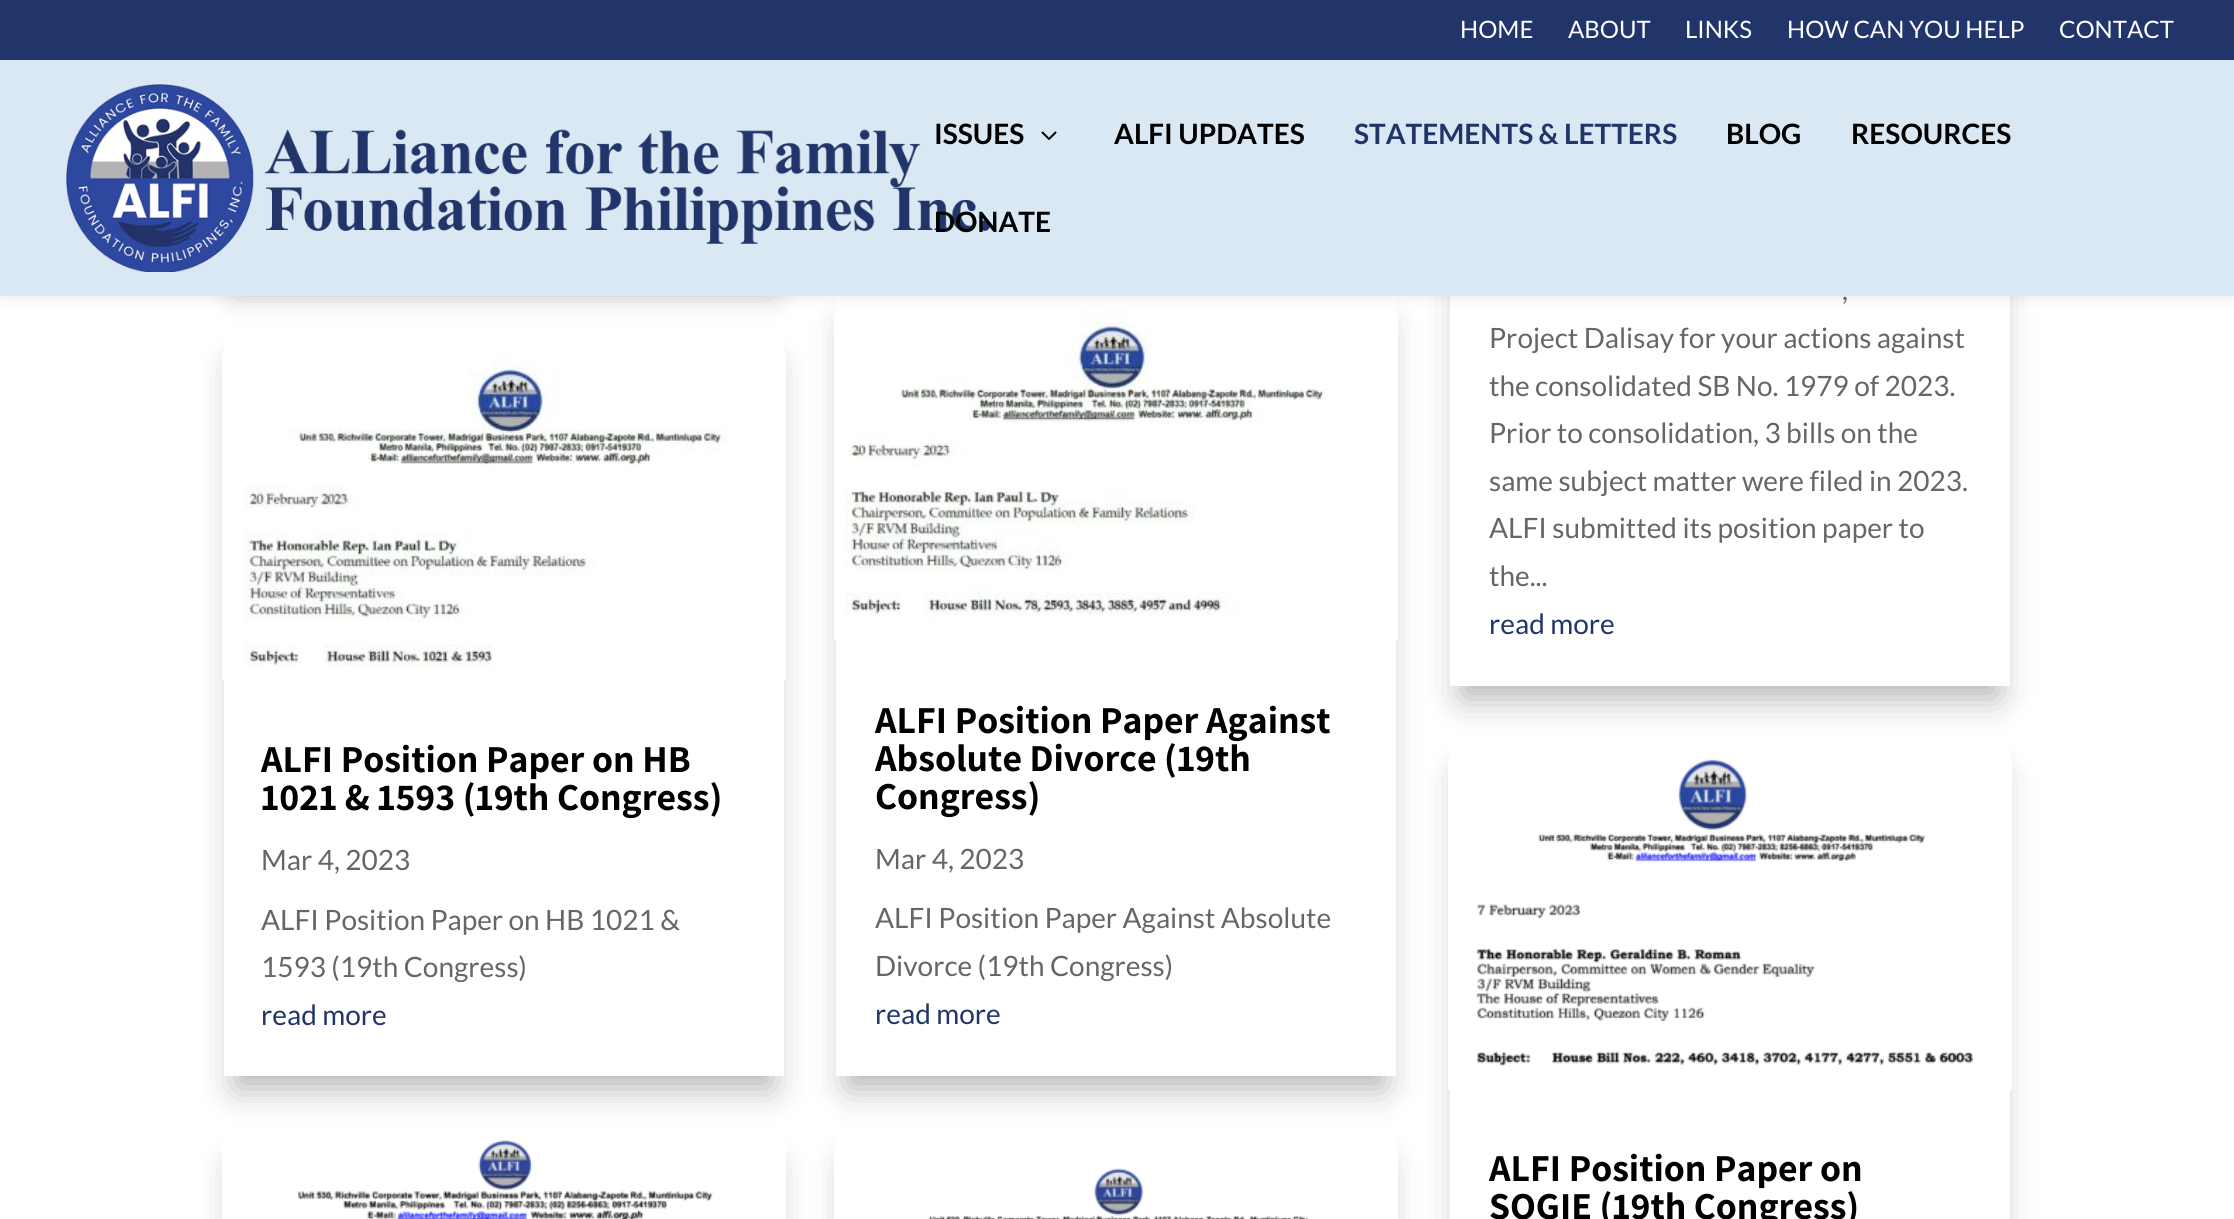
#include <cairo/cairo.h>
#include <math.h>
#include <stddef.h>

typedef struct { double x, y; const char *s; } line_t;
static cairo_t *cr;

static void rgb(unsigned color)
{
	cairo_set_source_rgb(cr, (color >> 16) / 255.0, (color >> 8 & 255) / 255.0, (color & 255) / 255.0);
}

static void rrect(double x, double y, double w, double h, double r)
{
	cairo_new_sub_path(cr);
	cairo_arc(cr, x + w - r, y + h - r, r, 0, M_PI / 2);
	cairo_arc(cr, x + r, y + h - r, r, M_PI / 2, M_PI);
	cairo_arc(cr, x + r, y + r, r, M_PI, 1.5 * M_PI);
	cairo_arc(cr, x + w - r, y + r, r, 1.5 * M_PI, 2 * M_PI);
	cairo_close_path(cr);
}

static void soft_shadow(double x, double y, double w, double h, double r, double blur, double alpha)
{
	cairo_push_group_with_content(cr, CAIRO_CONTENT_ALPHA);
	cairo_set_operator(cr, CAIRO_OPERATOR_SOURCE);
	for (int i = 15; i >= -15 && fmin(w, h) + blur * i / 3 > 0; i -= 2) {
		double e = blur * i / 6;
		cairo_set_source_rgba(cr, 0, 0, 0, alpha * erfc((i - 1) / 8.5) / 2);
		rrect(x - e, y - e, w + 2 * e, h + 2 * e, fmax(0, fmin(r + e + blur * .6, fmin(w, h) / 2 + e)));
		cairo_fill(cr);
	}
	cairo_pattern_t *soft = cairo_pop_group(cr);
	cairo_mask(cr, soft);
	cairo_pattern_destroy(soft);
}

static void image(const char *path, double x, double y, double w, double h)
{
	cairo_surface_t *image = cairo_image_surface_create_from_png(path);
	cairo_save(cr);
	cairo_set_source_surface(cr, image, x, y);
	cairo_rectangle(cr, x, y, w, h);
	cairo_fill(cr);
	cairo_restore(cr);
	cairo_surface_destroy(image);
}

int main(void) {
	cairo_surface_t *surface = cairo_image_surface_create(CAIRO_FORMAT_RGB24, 2234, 1219);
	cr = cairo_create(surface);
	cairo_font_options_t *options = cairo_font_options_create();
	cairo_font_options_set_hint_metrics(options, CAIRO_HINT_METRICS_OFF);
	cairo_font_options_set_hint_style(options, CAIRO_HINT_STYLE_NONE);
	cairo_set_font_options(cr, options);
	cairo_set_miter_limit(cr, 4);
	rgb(0xffffff);
	cairo_paint(cr);
	cairo_save(cr);
	cairo_set_fill_rule(cr, CAIRO_FILL_RULE_EVEN_ODD);
	cairo_new_path(cr);
	cairo_move_to(cr, 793, 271);
	cairo_line_to(cr, 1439, 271);
	cairo_line_to(cr, 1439, 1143);
	cairo_line_to(cr, 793, 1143);
	cairo_close_path(cr);
	cairo_move_to(cr, 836, 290);
	cairo_line_to(cr, 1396, 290);
	cairo_line_to(cr, 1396, 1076);
	cairo_line_to(cr, 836, 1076);
	cairo_close_path(cr);
	cairo_clip(cr);
	rgb(0x000000);
	soft_shadow(848, 326, 536, 762, 0, 18, 0.3);
	cairo_restore(cr);
	image("img/5.png", 834, 311, 564, 329);
	rgb(0x000000);
	soft_shadow(0, 60, 2234, 236, 0, 7, 0.1);
	soft_shadow(236, -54, 536, 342, 0, 18, 0.3);
	cairo_save(cr);
	cairo_set_fill_rule(cr, CAIRO_FILL_RULE_EVEN_ODD);
	cairo_new_path(cr);
	cairo_move_to(cr, 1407, 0);
	cairo_line_to(cr, 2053, 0);
	cairo_line_to(cr, 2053, 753);
	cairo_line_to(cr, 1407, 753);
	cairo_close_path(cr);
	cairo_move_to(cr, 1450, -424);
	cairo_line_to(cr, 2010, -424);
	cairo_line_to(cr, 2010, 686);
	cairo_line_to(cr, 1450, 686);
	cairo_close_path(cr);
	cairo_clip(cr);
	soft_shadow(1462, -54, 536, 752, 0, 18, 0.3);
	cairo_restore(cr);
	rgb(0x22356b);
	cairo_rectangle(cr, 0, 0, 2234, 60);
	cairo_fill(cr);
	rgb(0xdae8f3);
	cairo_rectangle(cr, 0, 60, 2234, 236);
	cairo_fill(cr);
	image("img/1.png", 66, 84, 924, 188);
	image("img/2.png", 1041, 131, 16, 9);
	cairo_save(cr);
	cairo_set_fill_rule(cr, CAIRO_FILL_RULE_EVEN_ODD);
	cairo_new_path(cr);
	cairo_move_to(cr, 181, 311);
	cairo_line_to(cr, 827, 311);
	cairo_line_to(cr, 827, 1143);
	cairo_line_to(cr, 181, 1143);
	cairo_close_path(cr);
	cairo_move_to(cr, 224, 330);
	cairo_line_to(cr, 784, 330);
	cairo_line_to(cr, 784, 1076);
	cairo_line_to(cr, 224, 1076);
	cairo_close_path(cr);
	cairo_clip(cr);
	rgb(0x000000);
	soft_shadow(236, 366, 536, 722, 0, 18, 0.3);
	cairo_restore(cr);
	image("img/3.png", 222, 352, 564, 328);
	cairo_save(cr);
	cairo_set_fill_rule(cr, CAIRO_FILL_RULE_EVEN_ODD);
	cairo_new_path(cr);
	cairo_move_to(cr, 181, 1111);
	cairo_line_to(cr, 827, 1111);
	cairo_line_to(cr, 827, 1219);
	cairo_line_to(cr, 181, 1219);
	cairo_close_path(cr);
	cairo_move_to(cr, 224, 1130);
	cairo_line_to(cr, 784, 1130);
	cairo_line_to(cr, 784, 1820);
	cairo_line_to(cr, 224, 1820);
	cairo_close_path(cr);
	cairo_clip(cr);
	rgb(0x000000);
	soft_shadow(236, 1166, 536, 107, 0, 18, 0.3);
	cairo_restore(cr);
	image("img/4.png", 222, 1140, 564, 79);
	cairo_save(cr);
	cairo_set_fill_rule(cr, CAIRO_FILL_RULE_EVEN_ODD);
	cairo_new_path(cr);
	cairo_move_to(cr, 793, 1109);
	cairo_line_to(cr, 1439, 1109);
	cairo_line_to(cr, 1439, 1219);
	cairo_line_to(cr, 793, 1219);
	cairo_close_path(cr);
	cairo_move_to(cr, 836, 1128);
	cairo_line_to(cr, 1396, 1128);
	cairo_line_to(cr, 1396, 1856);
	cairo_line_to(cr, 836, 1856);
	cairo_close_path(cr);
	cairo_clip(cr);
	rgb(0x000000);
	soft_shadow(848, 1164, 536, 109, 0, 18, 0.3);
	cairo_restore(cr);
	image("img/6.png", 834, 1150, 564, 69);
	cairo_save(cr);
	cairo_set_fill_rule(cr, CAIRO_FILL_RULE_EVEN_ODD);
	cairo_new_path(cr);
	cairo_move_to(cr, 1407, 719);
	cairo_line_to(cr, 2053, 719);
	cairo_line_to(cr, 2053, 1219);
	cairo_line_to(cr, 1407, 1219);
	cairo_close_path(cr);
	cairo_move_to(cr, 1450, 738);
	cairo_line_to(cr, 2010, 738);
	cairo_line_to(cr, 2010, 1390);
	cairo_line_to(cr, 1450, 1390);
	cairo_close_path(cr);
	cairo_clip(cr);
	rgb(0x000000);
	soft_shadow(1462, 774, 536, 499, 0, 18, 0.3);
	cairo_restore(cr);
	image("img/7.png", 1448, 759, 564, 331);
	cairo_select_font_face(cr, "Lato", CAIRO_FONT_SLANT_NORMAL, CAIRO_FONT_WEIGHT_NORMAL);
	cairo_set_font_size(cr, 24);
	rgb(0xffffff);
	{
		static const line_t items[] = {
			{1460, 38, "HOME"},
			{1568, 38, "ABOUT"},
			{1685, 38, "LINKS"},
			{1787, 38, "HOW CAN YOU HELP"},
			{2059, 38, "CONTACT"},
		};
		for (size_t i = 0; i < sizeof items / sizeof *items; i++) {
			cairo_move_to(cr, items[i].x, items[i].y);
			cairo_show_text(cr, items[i].s);
		}
	}
	cairo_select_font_face(cr, "Lato", CAIRO_FONT_SLANT_NORMAL, CAIRO_FONT_WEIGHT_BOLD);
	cairo_set_font_size(cr, 28);
	rgb(0x000000);
	cairo_move_to(cr, 934, 144);
	cairo_show_text(cr, "ISSUES");
	cairo_move_to(cr, 1114, 144);
	cairo_show_text(cr, "ALFI UPDATES");
	rgb(0x22356b);
	cairo_move_to(cr, 1354, 144);
	cairo_show_text(cr, "STATEMENTS & LETTERS");
	rgb(0x000000);
	{
		static const line_t items[] = {
			{1726, 144, "BLOG"},
			{1851, 144, "RESOURCES"},
			{934, 232, "DONATE"},
		};
		for (size_t i = 0; i < sizeof items / sizeof *items; i++) {
			cairo_move_to(cr, items[i].x, items[i].y);
			cairo_show_text(cr, items[i].s);
		}
	}
	cairo_select_font_face(cr, "Assistant", CAIRO_FONT_SLANT_NORMAL, CAIRO_FONT_WEIGHT_BOLD);
	cairo_set_font_size(cr, 38);
	cairo_move_to(cr, 261, 772);
	cairo_show_text(cr, "ALFI Position Paper on HB");
	cairo_move_to(cr, 261, 810);
	cairo_show_text(cr, "1021 & 1593 (19th Congress)");
	cairo_select_font_face(cr, "Lato", CAIRO_FONT_SLANT_NORMAL, CAIRO_FONT_WEIGHT_NORMAL);
	cairo_set_font_size(cr, 28);
	rgb(0x666666);
	{
		static const line_t items[] = {
			{261, 870, "Mar 4, 2023"},
			{261, 930, "ALFI Position Paper on HB 1021 &"},
			{261, 977, "1593 (19th Congress)"},
		};
		for (size_t i = 0; i < sizeof items / sizeof *items; i++) {
			cairo_move_to(cr, items[i].x, items[i].y);
			cairo_show_text(cr, items[i].s);
		}
	}
	rgb(0x22356b);
	cairo_move_to(cr, 261, 1025);
	cairo_show_text(cr, "read more");
	cairo_select_font_face(cr, "Assistant", CAIRO_FONT_SLANT_NORMAL, CAIRO_FONT_WEIGHT_BOLD);
	cairo_set_font_size(cr, 38);
	rgb(0x000000);
	{
		static const line_t items[] = {
			{875, 733, "ALFI Position Paper Against"},
			{875, 771, "Absolute Divorce (19th"},
			{875, 809, "Congress)"},
		};
		for (size_t i = 0; i < sizeof items / sizeof *items; i++) {
			cairo_move_to(cr, items[i].x, items[i].y);
			cairo_show_text(cr, items[i].s);
		}
	}
	cairo_select_font_face(cr, "Lato", CAIRO_FONT_SLANT_NORMAL, CAIRO_FONT_WEIGHT_NORMAL);
	cairo_set_font_size(cr, 28);
	rgb(0x666666);
	{
		static const line_t items[] = {
			{875, 869, "Mar 4, 2023"},
			{875, 928, "ALFI Position Paper Against Absolute"},
			{875, 976, "Divorce (19th Congress)"},
		};
		for (size_t i = 0; i < sizeof items / sizeof *items; i++) {
			cairo_move_to(cr, items[i].x, items[i].y);
			cairo_show_text(cr, items[i].s);
		}
	}
	rgb(0x22356b);
	cairo_move_to(cr, 875, 1024);
	cairo_show_text(cr, "read more");
	rgb(0x666666);
	{
		static const line_t items[] = {
			{1842, 300, ","},
			{1489, 348, "Project Dalisay for your actions against"},
			{1489, 396, "the consolidated SB No. 1979 of 2023."},
			{1489, 443, "Prior to consolidation, 3 bills on the"},
			{1489, 491, "same subject matter were filed in 2023."},
			{1489, 538, "ALFI submitted its position paper to"},
			{1489, 586, "the..."},
		};
		for (size_t i = 0; i < sizeof items / sizeof *items; i++) {
			cairo_move_to(cr, items[i].x, items[i].y);
			cairo_show_text(cr, items[i].s);
		}
	}
	rgb(0x22356b);
	cairo_move_to(cr, 1489, 634);
	cairo_show_text(cr, "read more");
	cairo_select_font_face(cr, "Assistant", CAIRO_FONT_SLANT_NORMAL, CAIRO_FONT_WEIGHT_BOLD);
	cairo_set_font_size(cr, 38);
	rgb(0x000000);
	cairo_move_to(cr, 1489, 1181);
	cairo_show_text(cr, "ALFI Position Paper on");
	cairo_move_to(cr, 1489, 1219);
	cairo_show_text(cr, "SOGIE (19th Congress)");
	cairo_surface_write_to_png(surface, "page.png");
	cairo_font_options_destroy(options);
	cairo_destroy(cr);
	cairo_surface_destroy(surface);
	return 0;
}
